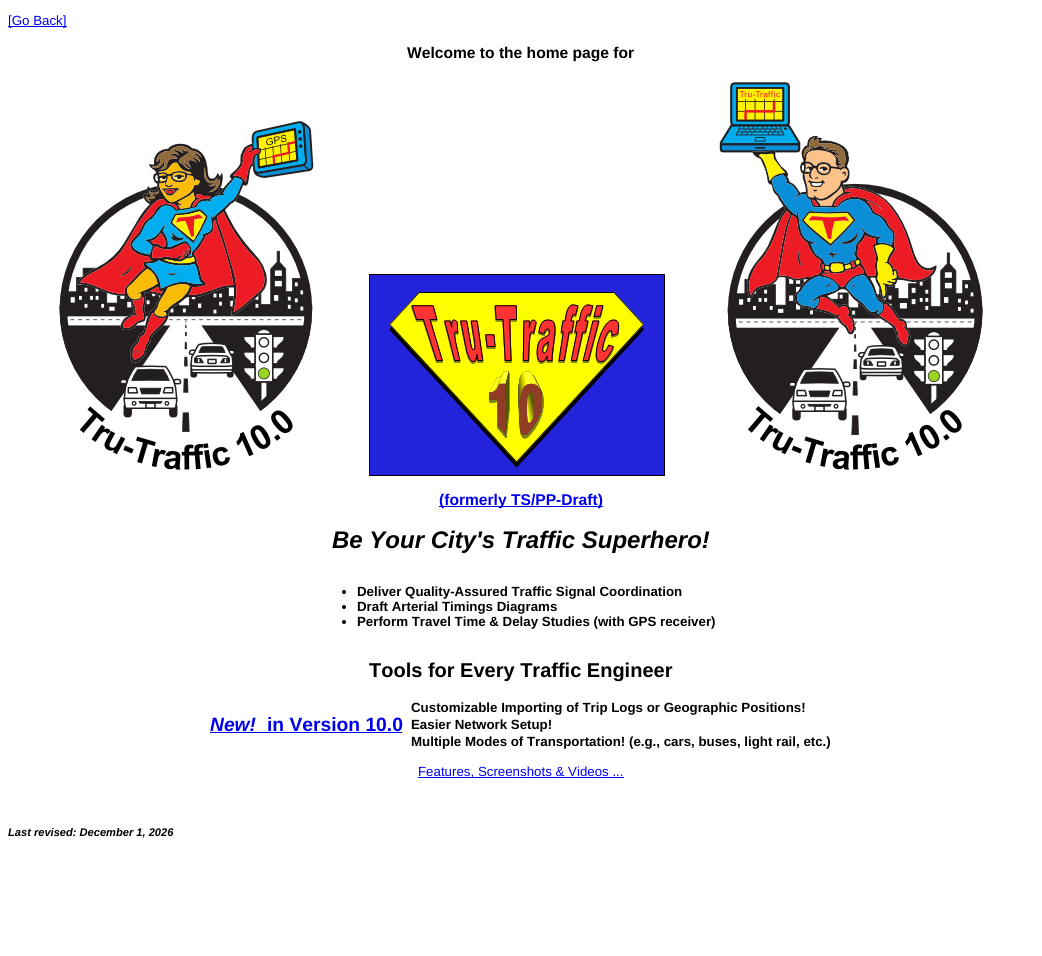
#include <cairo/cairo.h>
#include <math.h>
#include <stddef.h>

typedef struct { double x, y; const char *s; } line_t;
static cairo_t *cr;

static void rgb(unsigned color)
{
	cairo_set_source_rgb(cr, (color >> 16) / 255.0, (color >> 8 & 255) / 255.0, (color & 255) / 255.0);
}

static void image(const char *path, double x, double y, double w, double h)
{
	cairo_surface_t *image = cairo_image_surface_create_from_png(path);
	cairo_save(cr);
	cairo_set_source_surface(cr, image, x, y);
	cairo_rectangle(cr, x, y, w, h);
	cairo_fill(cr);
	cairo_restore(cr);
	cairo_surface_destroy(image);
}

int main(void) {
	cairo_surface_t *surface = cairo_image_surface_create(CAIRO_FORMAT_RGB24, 1042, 956);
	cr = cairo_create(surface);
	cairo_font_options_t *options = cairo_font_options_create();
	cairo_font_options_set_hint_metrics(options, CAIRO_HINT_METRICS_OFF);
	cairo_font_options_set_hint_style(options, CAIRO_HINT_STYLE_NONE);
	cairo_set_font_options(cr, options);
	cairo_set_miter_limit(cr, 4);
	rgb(0xffffff);
	cairo_paint(cr);
	rgb(0x0000ee);
	cairo_rectangle(cr, 8, 26, 59, 1);
	cairo_fill(cr);
	image("img/1.png", 59, 121, 255, 349);
	image("img/2.png", 369, 274, 296, 202);
	image("img/3.png", 719, 82, 264, 388);
	cairo_rectangle(cr, 439, 506, 164, 1);
	cairo_fill(cr);
	rgb(0x000000);
	cairo_arc(cr, 344, 592, 2, 0, 2 * M_PI);
	cairo_fill(cr);
	cairo_arc(cr, 344, 607, 2, 0, 2 * M_PI);
	cairo_fill(cr);
	cairo_arc(cr, 344, 622, 2, 0, 2 * M_PI);
	cairo_fill(cr);
	rgb(0x0000ee);
	cairo_rectangle(cr, 210, 732, 192, 1);
	cairo_fill(cr);
	cairo_rectangle(cr, 418, 777, 206, 1);
	cairo_fill(cr);
	cairo_select_font_face(cr, "Liberation Sans", CAIRO_FONT_SLANT_NORMAL, CAIRO_FONT_WEIGHT_NORMAL);
	cairo_set_font_size(cr, 13.3);
	cairo_move_to(cr, 8, 25);
	cairo_show_text(cr, "[Go Back]");
	cairo_select_font_face(cr, "Liberation Sans", CAIRO_FONT_SLANT_NORMAL, CAIRO_FONT_WEIGHT_BOLD);
	cairo_set_font_size(cr, 15.6);
	rgb(0x000000);
	cairo_move_to(cr, 407, 58);
	cairo_show_text(cr, "Welcome to the home page for");
	rgb(0x0000ee);
	cairo_move_to(cr, 439, 505);
	cairo_show_text(cr, "(formerly TS/PP-Draft)");
	cairo_select_font_face(cr, "Liberation Sans", CAIRO_FONT_SLANT_ITALIC, CAIRO_FONT_WEIGHT_BOLD);
	cairo_set_font_size(cr, 24);
	rgb(0x000000);
	cairo_move_to(cr, 332, 548);
	cairo_show_text(cr, "Be Your City's Traffic Superhero!");
	cairo_select_font_face(cr, "Liberation Sans", CAIRO_FONT_SLANT_NORMAL, CAIRO_FONT_WEIGHT_BOLD);
	cairo_set_font_size(cr, 13.3);
	{
		static const line_t items[] = {
			{357, 596, "Deliver Quality-Assured Traffic Signal Coordination"},
			{357, 611, "Draft Arterial Timings Diagrams"},
			{357, 626, "Perform Travel Time & Delay Studies (with GPS receiver)"},
		};
		for (size_t i = 0; i < sizeof items / sizeof *items; i++) {
			cairo_move_to(cr, items[i].x, items[i].y);
			cairo_show_text(cr, items[i].s);
		}
	}
	cairo_set_font_size(cr, 20);
	cairo_move_to(cr, 369, 677);
	cairo_show_text(cr, "Tools for Every Traffic Engineer");
	cairo_set_font_size(cr, 13.3);
	cairo_move_to(cr, 411, 712);
	cairo_show_text(cr, "Customizable Importing of Trip Logs or Geographic Positions!");
	cairo_select_font_face(cr, "Liberation Sans", CAIRO_FONT_SLANT_ITALIC, CAIRO_FONT_WEIGHT_BOLD);
	cairo_set_font_size(cr, 19.25);
	rgb(0x0000ee);
	cairo_move_to(cr, 210, 731);
	cairo_show_text(cr, "New!");
	cairo_select_font_face(cr, "Liberation Sans", CAIRO_FONT_SLANT_NORMAL, CAIRO_FONT_WEIGHT_BOLD);
	cairo_move_to(cr, 267, 731);
	cairo_show_text(cr, "in Version 10.0");
	cairo_set_font_size(cr, 13.3);
	rgb(0x000000);
	cairo_move_to(cr, 411, 729);
	cairo_show_text(cr, "Easier Network Setup!");
	cairo_move_to(cr, 411, 746);
	cairo_show_text(cr, "Multiple Modes of Transportation! (e.g., cars, buses, light rail, etc.)");
	cairo_select_font_face(cr, "Liberation Sans", CAIRO_FONT_SLANT_NORMAL, CAIRO_FONT_WEIGHT_NORMAL);
	rgb(0x0000ee);
	cairo_move_to(cr, 418, 776);
	cairo_show_text(cr, "Features, Screenshots & Videos ...");
	cairo_select_font_face(cr, "Liberation Sans", CAIRO_FONT_SLANT_ITALIC, CAIRO_FONT_WEIGHT_BOLD);
	cairo_set_font_size(cr, 11.1);
	rgb(0x000000);
	cairo_move_to(cr, 8, 836);
	cairo_show_text(cr, "Last revised: December 1, 2026");
	cairo_surface_write_to_png(surface, "page.png");
	cairo_font_options_destroy(options);
	cairo_destroy(cr);
	cairo_surface_destroy(surface);
	return 0;
}
